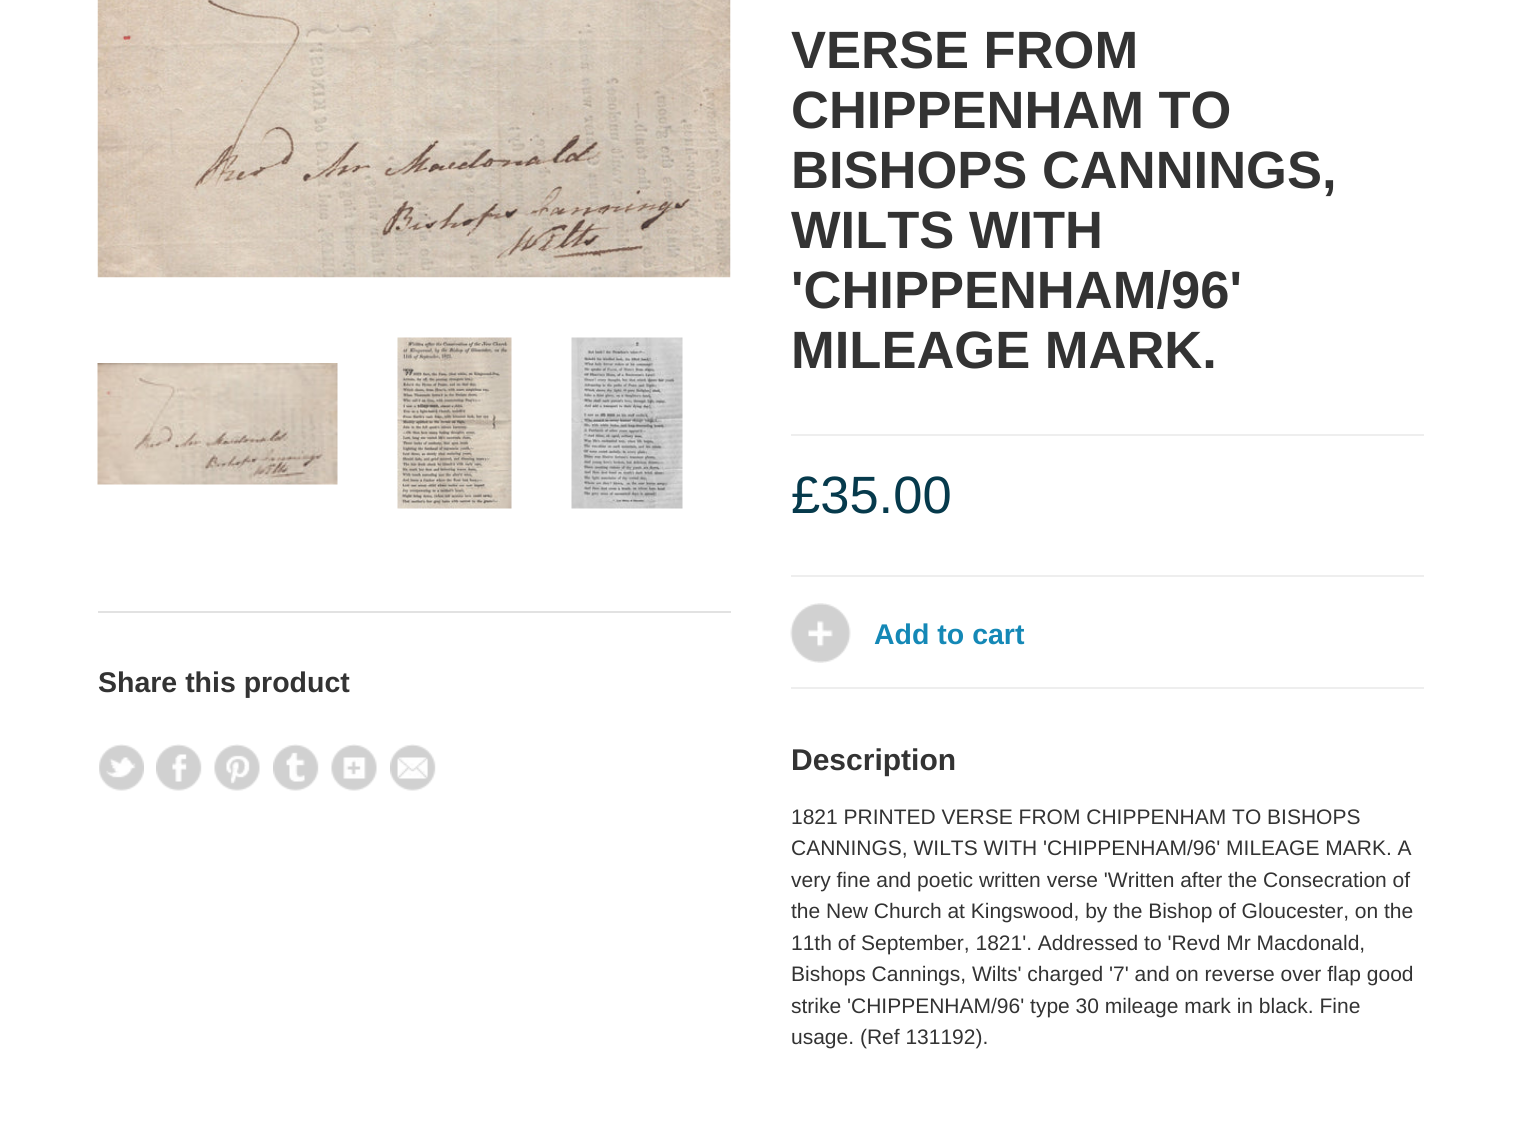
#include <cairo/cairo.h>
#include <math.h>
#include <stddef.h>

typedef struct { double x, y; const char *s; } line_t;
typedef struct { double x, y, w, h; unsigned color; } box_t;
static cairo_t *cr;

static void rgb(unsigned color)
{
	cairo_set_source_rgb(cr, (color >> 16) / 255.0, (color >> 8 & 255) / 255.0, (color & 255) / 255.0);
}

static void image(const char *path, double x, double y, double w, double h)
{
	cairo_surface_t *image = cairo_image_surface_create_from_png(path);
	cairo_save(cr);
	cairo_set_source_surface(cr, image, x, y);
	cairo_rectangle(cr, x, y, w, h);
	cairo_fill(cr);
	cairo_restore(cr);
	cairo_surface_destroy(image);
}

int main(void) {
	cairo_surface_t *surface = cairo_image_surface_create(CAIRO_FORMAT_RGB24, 1521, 1130);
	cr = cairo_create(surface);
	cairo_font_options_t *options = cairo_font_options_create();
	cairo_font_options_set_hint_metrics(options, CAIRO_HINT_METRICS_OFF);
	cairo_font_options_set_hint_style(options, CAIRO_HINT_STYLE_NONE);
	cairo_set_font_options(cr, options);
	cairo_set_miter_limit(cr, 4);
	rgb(0xffffff);
	cairo_paint(cr);
	image("img/1.png", 97, 0, 634, 278);
	image("img/2.png", 97, 363, 241, 122);
	image("img/3.png", 397, 337, 115, 172);
	image("img/4.png", 571, 337, 112, 172);
	rgb(0xe2e2e2);
	cairo_rectangle(cr, 98, 611, 633, 2);
	cairo_fill(cr);
	image("img/5.png", 99, 744, 45, 47);
	image("img/6.png", 156, 744, 46, 47);
	image("img/7.png", 214, 744, 46, 47);
	image("img/8.png", 273, 744, 46, 47);
	image("img/9.png", 331, 744, 46, 47);
	image("img/10.png", 390, 744, 46, 47);
	{
		static const box_t items[] = {
			{791, 434, 633, 2, 0xeeeeee},
			{791, 575, 633, 2, 0xeeeeee},
			{791, 687, 633, 2, 0xeeeeee},
		};
		for (size_t i = 0; i < sizeof items / sizeof *items; i++) {
			rgb(items[i].color);
			cairo_rectangle(cr, items[i].x, items[i].y, items[i].w, items[i].h);
			cairo_fill(cr);
		}
	}
	image("img/11.png", 790, 603, 61, 60);
	cairo_select_font_face(cr, "Liberation Sans", CAIRO_FONT_SLANT_NORMAL, CAIRO_FONT_WEIGHT_BOLD);
	cairo_set_font_size(cr, 28.5);
	rgb(0x333333);
	cairo_move_to(cr, 98, 692);
	cairo_show_text(cr, "Share this product");
	cairo_set_font_size(cr, 52.5);
	{
		static const line_t items[] = {
			{791, 68, "VERSE FROM"},
			{791, 128, "CHIPPENHAM TO"},
			{791, 188, "BISHOPS CANNINGS,"},
			{791, 248, "WILTS WITH"},
			{791, 308, "'CHIPPENHAM/96'"},
			{791, 368, "MILEAGE MARK."},
		};
		for (size_t i = 0; i < sizeof items / sizeof *items; i++) {
			cairo_move_to(cr, items[i].x, items[i].y);
			cairo_show_text(cr, items[i].s);
		}
	}
	cairo_select_font_face(cr, "Liberation Sans", CAIRO_FONT_SLANT_NORMAL, CAIRO_FONT_WEIGHT_NORMAL);
	rgb(0x063a4c);
	cairo_move_to(cr, 791, 513);
	cairo_show_text(cr, "£35.00");
	cairo_select_font_face(cr, "Liberation Sans", CAIRO_FONT_SLANT_NORMAL, CAIRO_FONT_WEIGHT_BOLD);
	cairo_set_font_size(cr, 28.5);
	rgb(0x1488b6);
	cairo_move_to(cr, 874, 644);
	cairo_show_text(cr, "Add to cart");
	cairo_set_font_size(cr, 30);
	rgb(0x333333);
	cairo_move_to(cr, 791, 770);
	cairo_show_text(cr, "Description");
	cairo_select_font_face(cr, "Liberation Sans", CAIRO_FONT_SLANT_NORMAL, CAIRO_FONT_WEIGHT_NORMAL);
	cairo_set_font_size(cr, 21);
	{
		static const line_t items[] = {
			{791, 824, "1821 PRINTED VERSE FROM CHIPPENHAM TO BISHOPS"},
			{791, 855, "CANNINGS, WILTS WITH 'CHIPPENHAM/96' MILEAGE MARK. A"},
			{791, 887, "very fine and poetic written verse 'Written after the Consecration of"},
			{791, 918, "the New Church at Kingswood, by the Bishop of Gloucester, on the"},
			{791, 950, "11th of September, 1821'. Addressed to 'Revd Mr Macdonald,"},
			{791, 981, "Bishops Cannings, Wilts' charged '7' and on reverse over flap good"},
			{791, 1013, "strike 'CHIPPENHAM/96' type 30 mileage mark in black. Fine"},
			{791, 1044, "usage. (Ref 131192)."},
		};
		for (size_t i = 0; i < sizeof items / sizeof *items; i++) {
			cairo_move_to(cr, items[i].x, items[i].y);
			cairo_show_text(cr, items[i].s);
		}
	}
	cairo_surface_write_to_png(surface, "page.png");
	cairo_font_options_destroy(options);
	cairo_destroy(cr);
	cairo_surface_destroy(surface);
	return 0;
}
